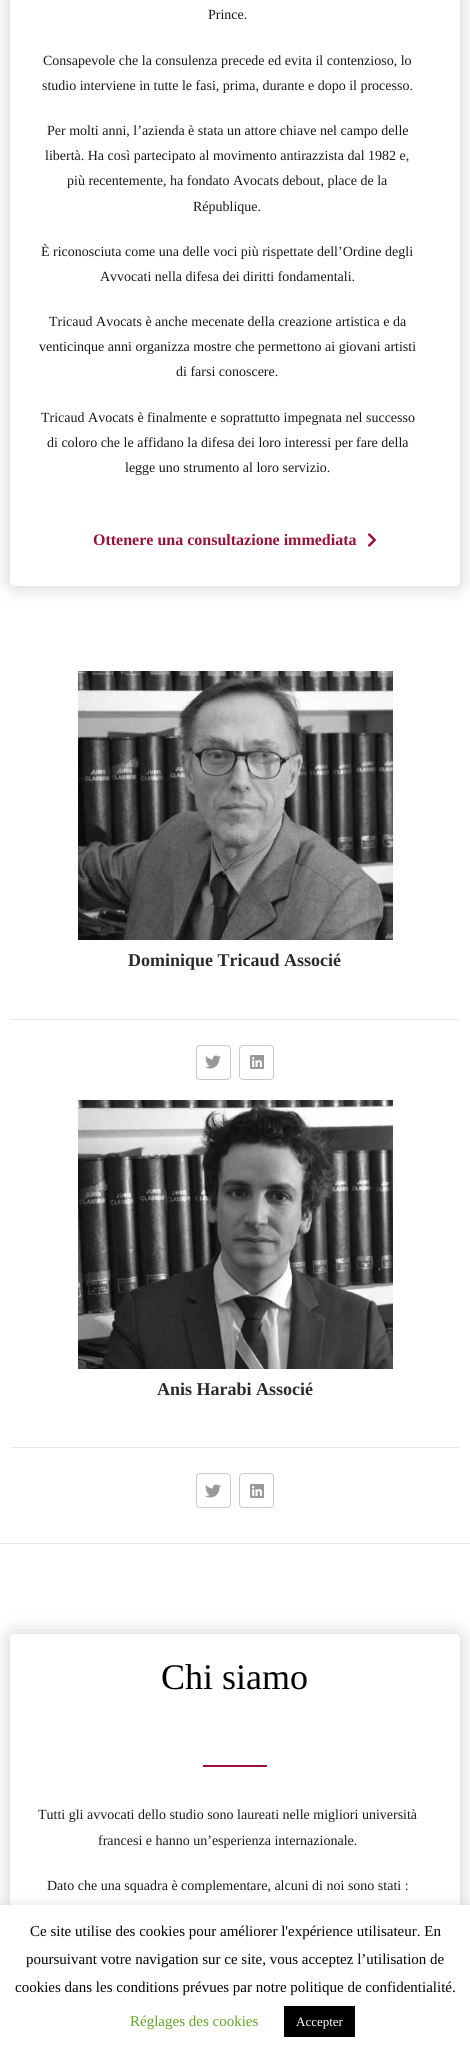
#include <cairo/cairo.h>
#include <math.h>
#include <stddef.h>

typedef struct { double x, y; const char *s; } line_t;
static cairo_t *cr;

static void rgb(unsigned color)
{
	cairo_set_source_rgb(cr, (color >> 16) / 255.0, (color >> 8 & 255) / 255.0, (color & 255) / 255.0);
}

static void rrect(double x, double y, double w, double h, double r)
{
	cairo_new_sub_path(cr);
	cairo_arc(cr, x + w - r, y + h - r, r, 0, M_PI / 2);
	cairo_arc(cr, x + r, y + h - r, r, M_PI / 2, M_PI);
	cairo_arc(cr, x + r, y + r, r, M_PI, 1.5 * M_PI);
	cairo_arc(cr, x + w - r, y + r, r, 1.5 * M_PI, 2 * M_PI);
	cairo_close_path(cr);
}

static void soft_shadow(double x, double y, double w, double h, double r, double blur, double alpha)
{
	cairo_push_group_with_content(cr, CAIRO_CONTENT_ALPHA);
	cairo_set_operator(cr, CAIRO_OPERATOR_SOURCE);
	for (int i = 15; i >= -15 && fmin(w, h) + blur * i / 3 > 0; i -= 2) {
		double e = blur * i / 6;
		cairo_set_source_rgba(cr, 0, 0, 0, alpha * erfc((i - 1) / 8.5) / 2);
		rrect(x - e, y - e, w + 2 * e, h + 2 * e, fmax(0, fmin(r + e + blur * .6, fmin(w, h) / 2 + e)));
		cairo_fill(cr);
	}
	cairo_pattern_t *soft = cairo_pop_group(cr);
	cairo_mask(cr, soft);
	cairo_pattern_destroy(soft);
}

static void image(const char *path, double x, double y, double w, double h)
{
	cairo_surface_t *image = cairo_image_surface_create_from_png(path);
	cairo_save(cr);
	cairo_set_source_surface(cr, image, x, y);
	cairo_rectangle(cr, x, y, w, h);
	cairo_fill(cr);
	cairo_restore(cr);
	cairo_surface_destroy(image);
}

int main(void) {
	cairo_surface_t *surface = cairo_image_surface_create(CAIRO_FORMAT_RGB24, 470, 2054);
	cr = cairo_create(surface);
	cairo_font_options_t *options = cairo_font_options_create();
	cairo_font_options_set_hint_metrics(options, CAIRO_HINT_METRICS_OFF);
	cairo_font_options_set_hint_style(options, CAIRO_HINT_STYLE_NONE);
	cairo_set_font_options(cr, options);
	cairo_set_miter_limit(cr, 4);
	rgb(0xffffff);
	cairo_paint(cr);
	rgb(0x000000);
	soft_shadow(10, -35, 450, 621, 5, 10, 0.2);
	rgb(0xffffff);
	rrect(10, -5, 450, 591, 5);
	cairo_fill(cr);
	image("img/1.png", 367, 533, 10, 14);
	image("img/2.png", 78, 671, 315, 269);
	rgb(0xeaeaea);
	cairo_rectangle(cr, 10, 1019, 450, 1);
	cairo_fill(cr);
	rrect(196.5, 1045.5, 34, 34, 3.5);
	rgb(0xc9c9c9);
	cairo_set_line_width(cr, 1);
	cairo_stroke(cr);
	image("img/3.png", 205, 1055, 16, 14);
	rrect(239.5, 1045.5, 34, 34, 3.5);
	cairo_stroke(cr);
	image("img/4.png", 250, 1055, 14, 14);
	image("img/5.png", 78, 1100, 315, 269);
	rgb(0xeaeaea);
	cairo_rectangle(cr, 10, 1447, 450, 1);
	cairo_fill(cr);
	rrect(196.5, 1473.5, 34, 34, 3.5);
	rgb(0xc9c9c9);
	cairo_stroke(cr);
	image("img/3.png", 205, 1484, 16, 14);
	rrect(239.5, 1473.5, 34, 34, 3.5);
	cairo_stroke(cr);
	image("img/4.png", 250, 1484, 14, 14);
	rgb(0xeaeaea);
	cairo_rectangle(cr, 0, 1543, 470, 1);
	cairo_fill(cr);
	rgb(0x000000);
	soft_shadow(10, 1634, 450, 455, 5, 10, 0.2);
	rgb(0xffffff);
	rrect(10, 1634, 450, 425, 5);
	cairo_fill(cr);
	rgb(0x9b1136);
	cairo_rectangle(cr, 203, 1765, 64, 2);
	cairo_fill(cr);
	rgb(0xacabab);
	soft_shadow(0, 1904, 470, 149, 0, 5, 0.3);
	rgb(0xffffff);
	cairo_rectangle(cr, 0, 1905, 470, 149);
	cairo_fill(cr);
	rgb(0x000000);
	cairo_rectangle(cr, 284, 2006, 71, 31);
	cairo_fill(cr);
	cairo_select_font_face(cr, "Liberation Serif", CAIRO_FONT_SLANT_NORMAL, CAIRO_FONT_WEIGHT_NORMAL);
	cairo_set_font_size(cr, 14);
	rgb(0x191919);
	{
		static const line_t items[] = {
			{208, 19, "Prince."},
			{43, 65, "Consapevole che la consulenza precede ed evita il contenzioso, lo"},
			{42, 90, "studio interviene in tutte le fasi, prima, durante e dopo il processo."},
			{47, 135, "Per molti anni, l’azienda è stata un attore chiave nel campo delle"},
			{45, 160, "libertà. Ha così partecipato al movimento antirazzista dal 1982 e,"},
			{67, 185, "più recentemente, ha fondato Avocats debout, place de la"},
			{193, 211, "République."},
			{41, 256, "È riconosciuta come una delle voci più rispettate dell’Ordine degli"},
			{100, 281, "Avvocati nella difesa dei diritti fondamentali."},
			{49, 326, "Tricaud Avocats è anche mecenate della creazione artistica e da"},
			{39, 351, "venticinque anni organizza mostre che permettono ai giovani artisti"},
			{176, 376, "di farsi conoscere."},
			{41, 422, "Tricaud Avocats è finalmente e soprattutto impegnata nel successo"},
			{47, 447, "di coloro che le affidano la difesa dei loro interessi per fare della"},
			{125, 472, "legge uno strumento al loro servizio."},
		};
		for (size_t i = 0; i < sizeof items / sizeof *items; i++) {
			cairo_move_to(cr, items[i].x, items[i].y);
			cairo_show_text(cr, items[i].s);
		}
	}
	cairo_select_font_face(cr, "Liberation Serif", CAIRO_FONT_SLANT_NORMAL, CAIRO_FONT_WEIGHT_BOLD);
	cairo_set_font_size(cr, 16);
	rgb(0x981235);
	cairo_move_to(cr, 93, 545);
	cairo_show_text(cr, "Ottenere una consultazione immediata");
	cairo_set_font_size(cr, 18);
	rgb(0x2b2b2b);
	cairo_move_to(cr, 128, 966);
	cairo_show_text(cr, "Dominique Tricaud Associé");
	cairo_move_to(cr, 157, 1395);
	cairo_show_text(cr, "Anis Harabi Associé");
	cairo_select_font_face(cr, "Liberation Serif", CAIRO_FONT_SLANT_NORMAL, CAIRO_FONT_WEIGHT_NORMAL);
	cairo_set_font_size(cr, 36);
	rgb(0x000000);
	cairo_move_to(cr, 161, 1689);
	cairo_show_text(cr, "Chi siamo");
	cairo_set_font_size(cr, 14);
	rgb(0x191919);
	{
		static const line_t items[] = {
			{38, 1819, "Tutti gli avvocati dello studio sono laureati nelle migliori università"},
			{98, 1845, "francesi e hanno un’esperienza internazionale."},
			{47, 1890, "Dato che una squadra è complementare, alcuni di noi sono stati :"},
		};
		for (size_t i = 0; i < sizeof items / sizeof *items; i++) {
			cairo_move_to(cr, items[i].x, items[i].y);
			cairo_show_text(cr, items[i].s);
		}
	}
	cairo_set_font_size(cr, 15);
	rgb(0x000000);
	{
		static const line_t items[] = {
			{30, 1936, "Ce site utilise des cookies pour améliorer l'expérience utilisateur. En"},
			{26, 1964, "poursuivant votre navigation sur ce site, vous acceptez l’utilisation de"},
			{15, 1992, "cookies dans les conditions prévues par notre politique de confidentialité."},
		};
		for (size_t i = 0; i < sizeof items / sizeof *items; i++) {
			cairo_move_to(cr, items[i].x, items[i].y);
			cairo_show_text(cr, items[i].s);
		}
	}
	rgb(0x62a329);
	cairo_move_to(cr, 130, 2026);
	cairo_show_text(cr, "Réglages des cookies");
	cairo_set_font_size(cr, 13);
	rgb(0xffffff);
	cairo_move_to(cr, 296, 2026);
	cairo_show_text(cr, "Accepter");
	cairo_surface_write_to_png(surface, "page.png");
	cairo_font_options_destroy(options);
	cairo_destroy(cr);
	cairo_surface_destroy(surface);
	return 0;
}
